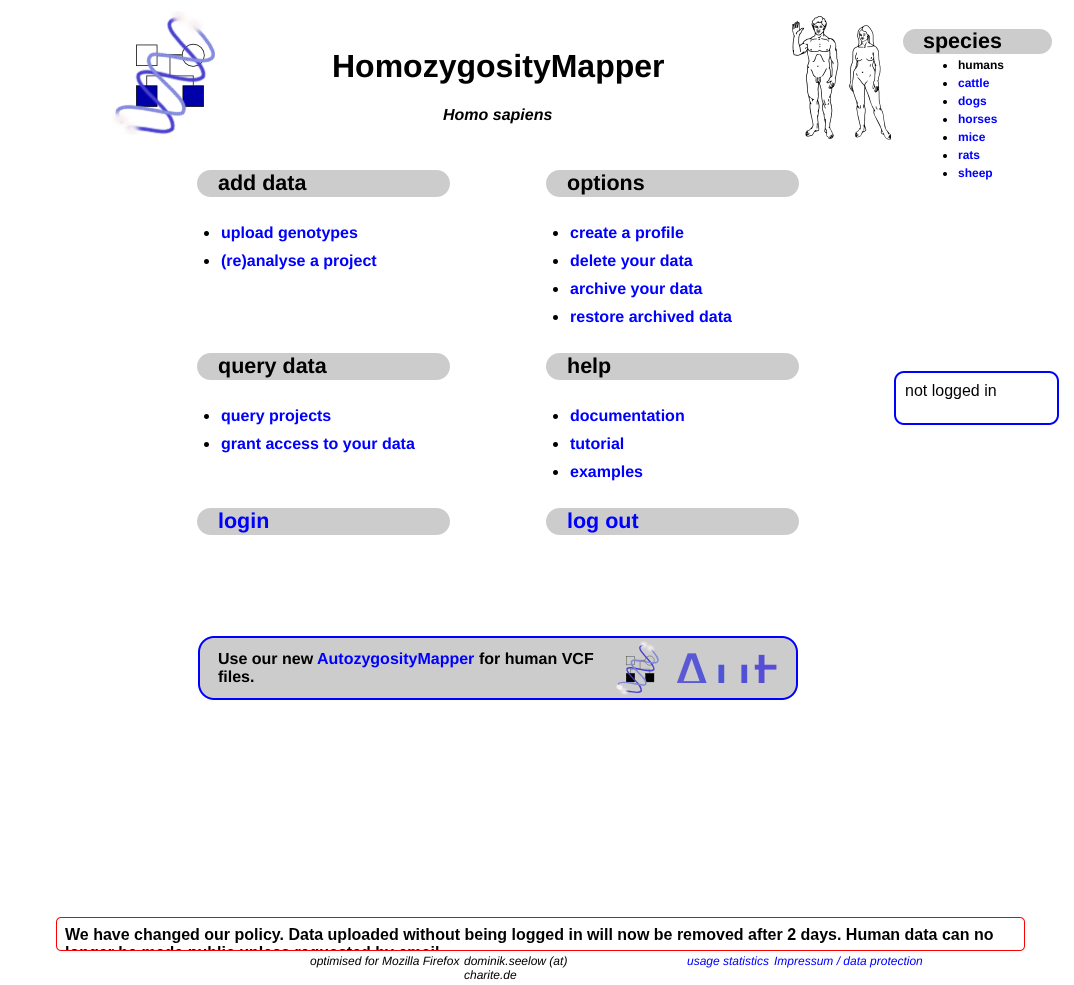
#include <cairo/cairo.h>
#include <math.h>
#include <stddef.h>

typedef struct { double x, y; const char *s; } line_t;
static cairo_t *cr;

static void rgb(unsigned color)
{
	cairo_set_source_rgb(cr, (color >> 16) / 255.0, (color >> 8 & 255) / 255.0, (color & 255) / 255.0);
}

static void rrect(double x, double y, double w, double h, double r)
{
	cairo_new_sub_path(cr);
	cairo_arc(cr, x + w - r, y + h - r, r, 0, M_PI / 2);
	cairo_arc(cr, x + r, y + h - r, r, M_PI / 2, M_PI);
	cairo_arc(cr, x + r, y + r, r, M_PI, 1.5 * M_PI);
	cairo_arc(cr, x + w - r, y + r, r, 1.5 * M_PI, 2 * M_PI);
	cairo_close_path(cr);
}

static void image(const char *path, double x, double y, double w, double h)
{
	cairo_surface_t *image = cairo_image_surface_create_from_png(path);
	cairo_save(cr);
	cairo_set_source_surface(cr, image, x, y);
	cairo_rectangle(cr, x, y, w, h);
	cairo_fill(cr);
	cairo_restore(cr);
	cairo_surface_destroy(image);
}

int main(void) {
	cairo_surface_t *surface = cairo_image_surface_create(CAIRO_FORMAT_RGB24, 1074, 985);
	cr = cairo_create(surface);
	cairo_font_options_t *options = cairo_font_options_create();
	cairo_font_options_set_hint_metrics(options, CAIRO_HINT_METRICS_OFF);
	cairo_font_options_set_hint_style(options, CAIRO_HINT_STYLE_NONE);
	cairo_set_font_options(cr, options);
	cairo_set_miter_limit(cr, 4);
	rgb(0xffffff);
	cairo_paint(cr);
	image("img/1.png", 112, 11, 103, 124);
	image("img/2.png", 792, 16, 99, 124);
	rgb(0xcccccc);
	rrect(903, 29, 149, 25, 12.5);
	cairo_fill(cr);
	rgb(0x000000);
	cairo_arc(cr, 945, 66, 2, 0, 2 * M_PI);
	cairo_fill(cr);
	cairo_arc(cr, 945, 84, 2, 0, 2 * M_PI);
	cairo_fill(cr);
	cairo_arc(cr, 945, 102, 2, 0, 2 * M_PI);
	cairo_fill(cr);
	cairo_arc(cr, 945, 120, 2, 0, 2 * M_PI);
	cairo_fill(cr);
	cairo_arc(cr, 945, 138, 2, 0, 2 * M_PI);
	cairo_fill(cr);
	cairo_arc(cr, 945, 156, 2, 0, 2 * M_PI);
	cairo_fill(cr);
	cairo_arc(cr, 945, 174, 2, 0, 2 * M_PI);
	cairo_fill(cr);
	rgb(0xcccccc);
	rrect(197, 170, 253, 27, 13.5);
	cairo_fill(cr);
	rrect(546, 170, 253, 27, 13.5);
	cairo_fill(cr);
	rgb(0x000000);
	cairo_arc(cr, 206.5, 233.5, 2.5, 0, 2 * M_PI);
	cairo_fill(cr);
	cairo_arc(cr, 206.5, 261.5, 2.5, 0, 2 * M_PI);
	cairo_fill(cr);
	cairo_arc(cr, 555.5, 233.5, 2.5, 0, 2 * M_PI);
	cairo_fill(cr);
	cairo_arc(cr, 555.5, 261.5, 2.5, 0, 2 * M_PI);
	cairo_fill(cr);
	cairo_arc(cr, 555.5, 289.5, 2.5, 0, 2 * M_PI);
	cairo_fill(cr);
	cairo_arc(cr, 555.5, 317.5, 2.5, 0, 2 * M_PI);
	cairo_fill(cr);
	rgb(0xcccccc);
	rrect(197, 353, 253, 27, 13.5);
	cairo_fill(cr);
	rrect(546, 353, 253, 27, 13.5);
	cairo_fill(cr);
	rgb(0x000000);
	cairo_arc(cr, 206.5, 416.5, 2.5, 0, 2 * M_PI);
	cairo_fill(cr);
	cairo_arc(cr, 206.5, 444.5, 2.5, 0, 2 * M_PI);
	cairo_fill(cr);
	cairo_arc(cr, 555.5, 416.5, 2.5, 0, 2 * M_PI);
	cairo_fill(cr);
	cairo_arc(cr, 555.5, 444.5, 2.5, 0, 2 * M_PI);
	cairo_fill(cr);
	cairo_arc(cr, 555.5, 472.5, 2.5, 0, 2 * M_PI);
	cairo_fill(cr);
	rgb(0xcccccc);
	rrect(197, 508, 253, 27, 13.5);
	cairo_fill(cr);
	rrect(546, 508, 253, 27, 13.5);
	cairo_fill(cr);
	rrect(199, 637, 598, 62, 15);
	cairo_fill_preserve(cr);
	rgb(0x0000ff);
	cairo_stroke(cr);
	image("img/3.png", 616, 641, 43, 54);
	image("img/4.png", 677, 653, 100, 30);
	rrect(895, 372, 163, 52, 9);
	cairo_stroke(cr);
	image("img/5.png", 906, 384, 90, 15);
	rrect(56.5, 917.5, 968, 33, 4.5);
	rgb(0xff0000);
	cairo_set_line_width(cr, 1);
	cairo_stroke(cr);
	image("img/6.png", 65, 928, 928, 22);
	cairo_select_font_face(cr, "Liberation Sans", CAIRO_FONT_SLANT_NORMAL, CAIRO_FONT_WEIGHT_BOLD);
	cairo_set_font_size(cr, 32);
	rgb(0x000000);
	cairo_move_to(cr, 332, 77);
	cairo_show_text(cr, "HomozygosityMapper");
	cairo_select_font_face(cr, "Liberation Sans", CAIRO_FONT_SLANT_ITALIC, CAIRO_FONT_WEIGHT_BOLD);
	cairo_set_font_size(cr, 16);
	cairo_move_to(cr, 443, 120);
	cairo_show_text(cr, "Homo sapiens");
	cairo_select_font_face(cr, "Liberation Sans", CAIRO_FONT_SLANT_NORMAL, CAIRO_FONT_WEIGHT_BOLD);
	cairo_set_font_size(cr, 21.5);
	cairo_move_to(cr, 923, 48);
	cairo_show_text(cr, "species");
	cairo_set_font_size(cr, 12);
	cairo_move_to(cr, 958, 69);
	cairo_show_text(cr, "humans");
	rgb(0x0000ff);
	{
		static const line_t items[] = {
			{958, 87, "cattle"},
			{958, 105, "dogs"},
			{958, 123, "horses"},
			{958, 141, "mice"},
			{958, 159, "rats"},
			{958, 177, "sheep"},
		};
		for (size_t i = 0; i < sizeof items / sizeof *items; i++) {
			cairo_move_to(cr, items[i].x, items[i].y);
			cairo_show_text(cr, items[i].s);
		}
	}
	cairo_set_font_size(cr, 21.5);
	rgb(0x000000);
	cairo_move_to(cr, 218, 190);
	cairo_show_text(cr, "add data");
	cairo_move_to(cr, 567, 190);
	cairo_show_text(cr, "options");
	cairo_set_font_size(cr, 16);
	rgb(0x0000ff);
	{
		static const line_t items[] = {
			{221, 238, "upload genotypes"},
			{221, 266, "(re)analyse a project"},
			{570, 238, "create a profile"},
			{570, 266, "delete your data"},
			{570, 294, "archive your data"},
			{570, 322, "restore archived data"},
		};
		for (size_t i = 0; i < sizeof items / sizeof *items; i++) {
			cairo_move_to(cr, items[i].x, items[i].y);
			cairo_show_text(cr, items[i].s);
		}
	}
	cairo_set_font_size(cr, 21.5);
	rgb(0x000000);
	cairo_move_to(cr, 218, 373);
	cairo_show_text(cr, "query data");
	cairo_move_to(cr, 567, 373);
	cairo_show_text(cr, "help");
	cairo_set_font_size(cr, 16);
	rgb(0x0000ff);
	{
		static const line_t items[] = {
			{221, 421, "query projects"},
			{221, 449, "grant access to your data"},
			{570, 421, "documentation"},
			{570, 449, "tutorial"},
			{570, 477, "examples"},
		};
		for (size_t i = 0; i < sizeof items / sizeof *items; i++) {
			cairo_move_to(cr, items[i].x, items[i].y);
			cairo_show_text(cr, items[i].s);
		}
	}
	cairo_set_font_size(cr, 21.5);
	cairo_move_to(cr, 218, 528);
	cairo_show_text(cr, "login");
	cairo_move_to(cr, 567, 528);
	cairo_show_text(cr, "log out");
	cairo_set_font_size(cr, 16);
	rgb(0x000000);
	cairo_move_to(cr, 218, 664);
	cairo_show_text(cr, "Use our new");
	rgb(0x0000ff);
	cairo_move_to(cr, 317, 664);
	cairo_show_text(cr, "AutozygosityMapper");
	rgb(0x000000);
	cairo_move_to(cr, 479, 664);
	cairo_show_text(cr, "for human VCF");
	cairo_move_to(cr, 218, 682);
	cairo_show_text(cr, "files.");
	cairo_select_font_face(cr, "Liberation Sans", CAIRO_FONT_SLANT_ITALIC, CAIRO_FONT_WEIGHT_NORMAL);
	cairo_set_font_size(cr, 12);
	{
		static const line_t items[] = {
			{310, 965, "optimised for Mozilla Firefox"},
			{464, 965, "dominik.seelow (at)"},
			{464, 979, "charite.de"},
		};
		for (size_t i = 0; i < sizeof items / sizeof *items; i++) {
			cairo_move_to(cr, items[i].x, items[i].y);
			cairo_show_text(cr, items[i].s);
		}
	}
	rgb(0x0000ff);
	cairo_move_to(cr, 687, 965);
	cairo_show_text(cr, "usage statistics");
	cairo_move_to(cr, 774, 965);
	cairo_show_text(cr, "Impressum / data protection");
	cairo_surface_write_to_png(surface, "page.png");
	cairo_font_options_destroy(options);
	cairo_destroy(cr);
	cairo_surface_destroy(surface);
	return 0;
}
